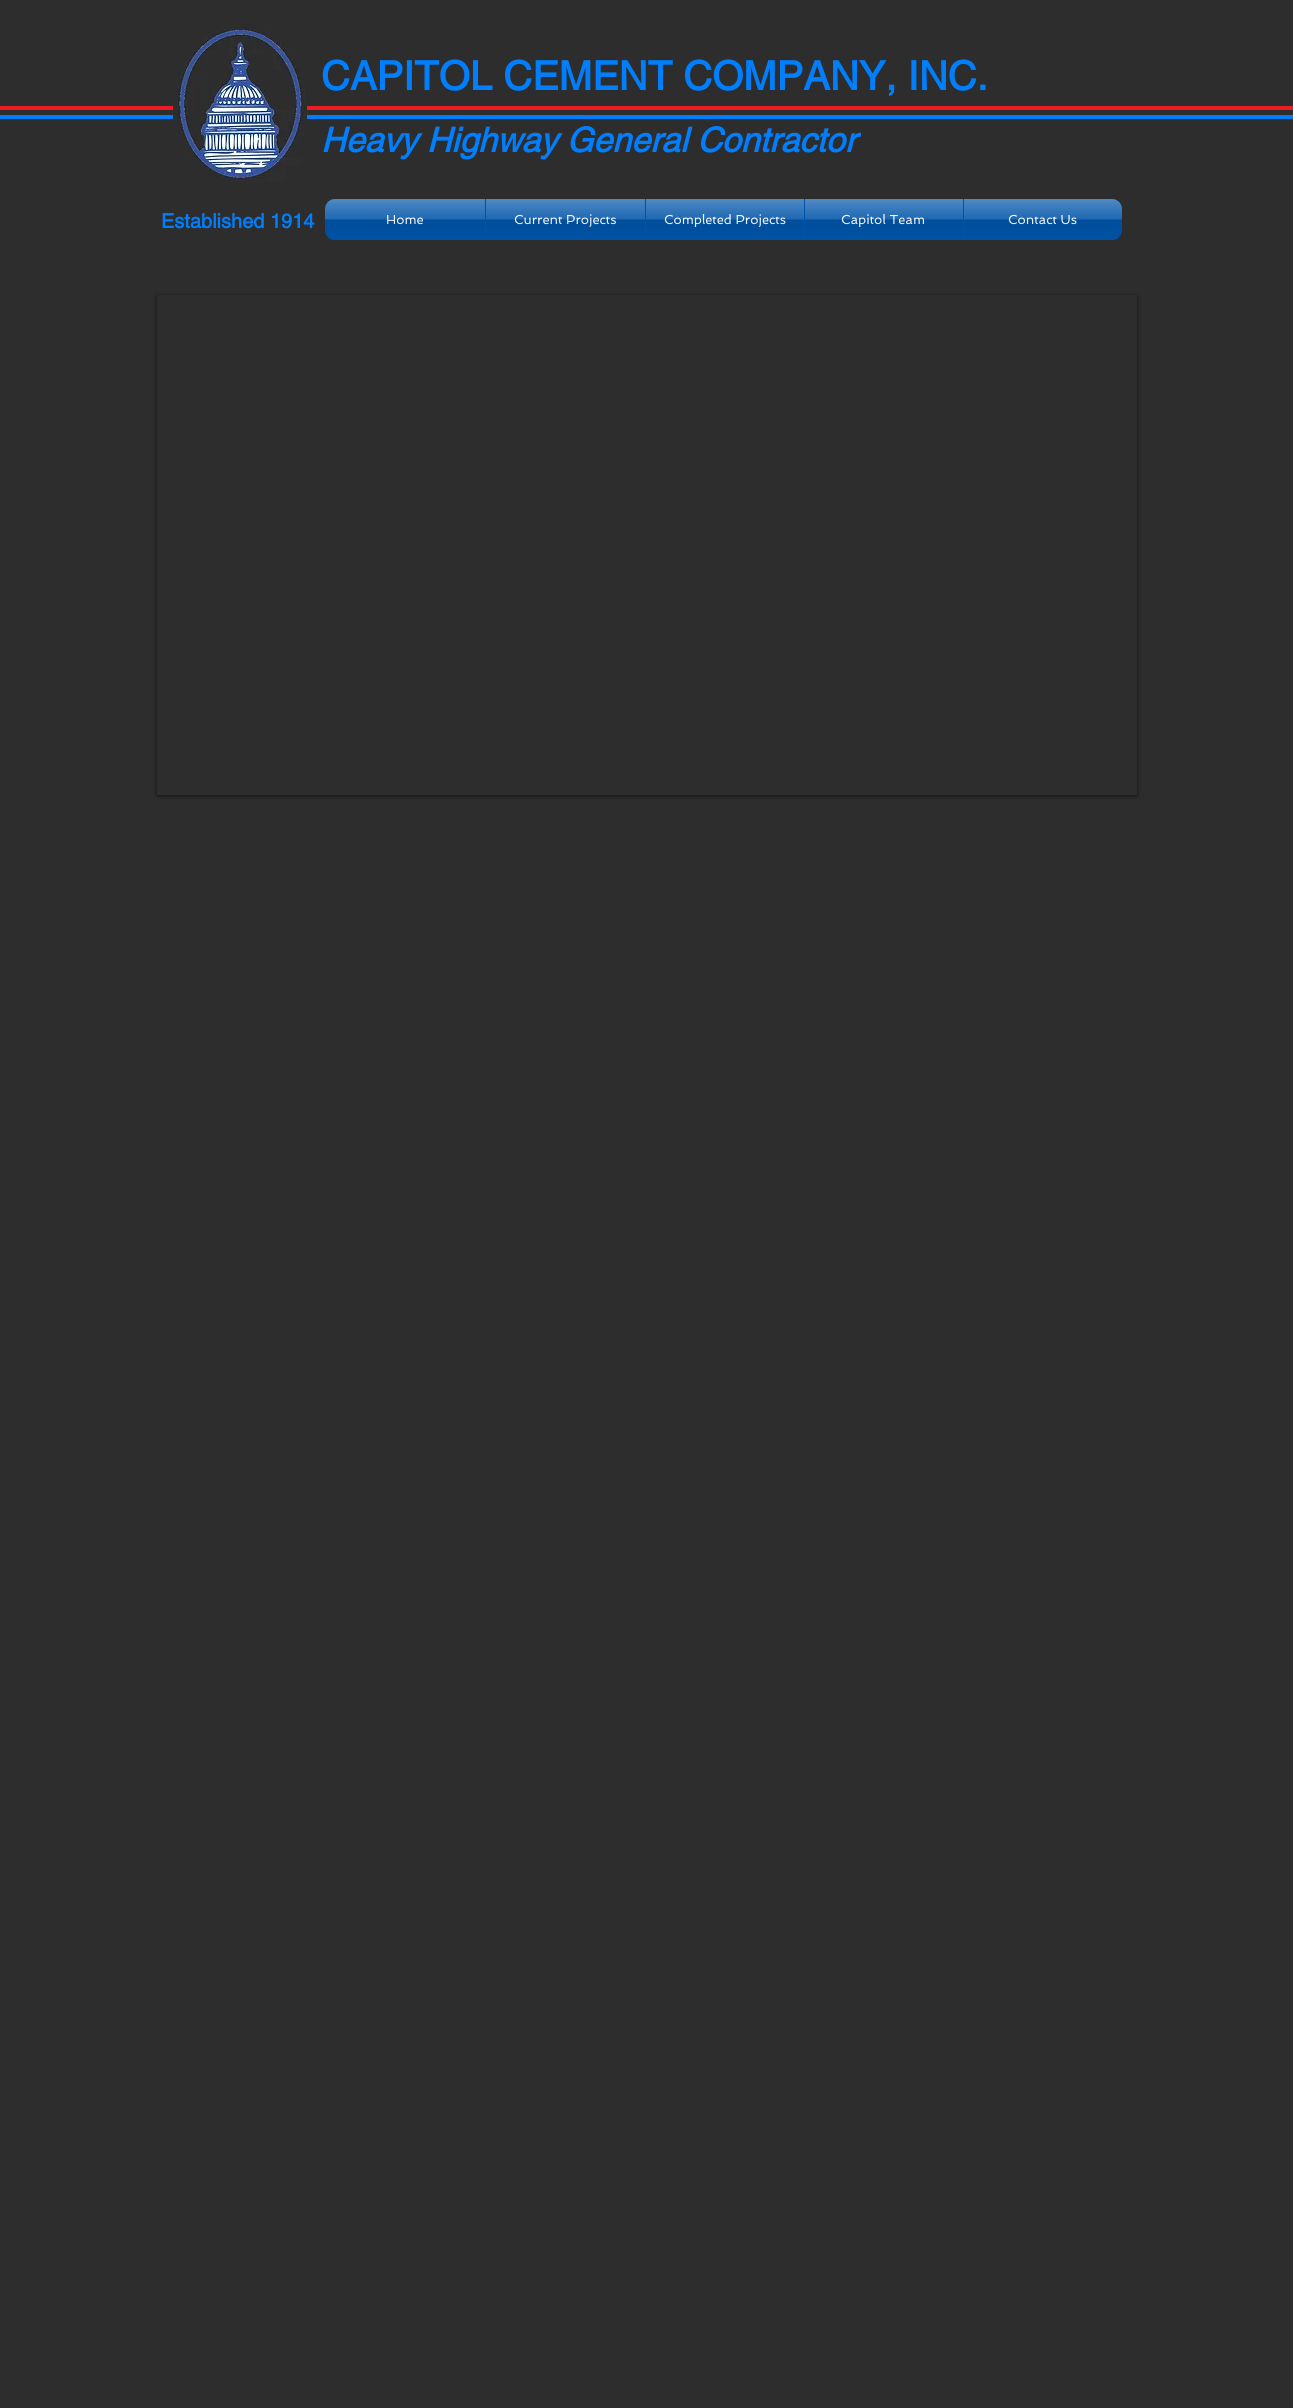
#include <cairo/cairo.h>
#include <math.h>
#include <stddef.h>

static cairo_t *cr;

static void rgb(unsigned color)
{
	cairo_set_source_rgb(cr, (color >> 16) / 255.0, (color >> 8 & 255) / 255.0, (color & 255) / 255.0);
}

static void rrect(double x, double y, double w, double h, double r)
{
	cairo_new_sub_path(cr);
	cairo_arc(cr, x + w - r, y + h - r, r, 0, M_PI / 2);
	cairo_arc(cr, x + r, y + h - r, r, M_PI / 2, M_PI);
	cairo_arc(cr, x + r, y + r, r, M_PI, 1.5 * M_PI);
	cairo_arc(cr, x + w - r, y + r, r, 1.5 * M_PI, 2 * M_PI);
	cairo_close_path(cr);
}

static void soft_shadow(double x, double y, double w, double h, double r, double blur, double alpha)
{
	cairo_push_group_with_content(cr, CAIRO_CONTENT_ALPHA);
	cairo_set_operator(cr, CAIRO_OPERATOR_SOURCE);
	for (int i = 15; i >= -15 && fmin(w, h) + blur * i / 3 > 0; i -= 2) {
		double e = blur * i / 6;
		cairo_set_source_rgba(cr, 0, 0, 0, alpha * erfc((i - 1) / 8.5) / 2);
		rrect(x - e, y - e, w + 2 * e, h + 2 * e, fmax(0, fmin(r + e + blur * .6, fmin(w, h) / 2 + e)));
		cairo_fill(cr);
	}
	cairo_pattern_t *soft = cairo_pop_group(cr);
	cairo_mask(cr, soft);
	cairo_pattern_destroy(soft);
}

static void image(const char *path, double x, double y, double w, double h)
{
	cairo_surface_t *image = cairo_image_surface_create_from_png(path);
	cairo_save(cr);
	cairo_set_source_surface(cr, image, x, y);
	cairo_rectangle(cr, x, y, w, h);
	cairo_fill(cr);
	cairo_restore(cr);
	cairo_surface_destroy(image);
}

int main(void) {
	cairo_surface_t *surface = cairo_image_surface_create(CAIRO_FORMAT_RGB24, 1293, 2408);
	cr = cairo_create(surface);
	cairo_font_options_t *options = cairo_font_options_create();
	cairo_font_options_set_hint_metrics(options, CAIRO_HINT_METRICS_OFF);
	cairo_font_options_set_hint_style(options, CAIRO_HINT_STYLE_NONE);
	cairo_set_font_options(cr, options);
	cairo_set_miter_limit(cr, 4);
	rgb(0x2d2d2d);
	cairo_paint(cr);
	rgb(0xed1c24);
	cairo_rectangle(cr, 0, 106, 1293, 4);
	cairo_fill(cr);
	rgb(0x007efc);
	cairo_rectangle(cr, 0, 115, 1293, 4);
	cairo_fill(cr);
	image("img/1.png", 173, 27, 134, 155);
	image("img/2.png", 325, 199, 797, 36);
	rgb(0x0054a8);
	cairo_new_path(cr);
	cairo_move_to(cr, 335, 199);
	cairo_line_to(cr, 485, 199);
	cairo_line_to(cr, 485, 240);
	cairo_line_to(cr, 335, 240);
	cairo_curve_to(cr, 329.5, 240, 325, 235.5, 325, 230);
	cairo_line_to(cr, 325, 209);
	cairo_curve_to(cr, 325, 203.5, 329.5, 199, 335, 199);
	cairo_close_path(cr);
	cairo_fill(cr);
	cairo_rectangle(cr, 485, 199, 478, 41);
	cairo_fill(cr);
	cairo_new_path(cr);
	cairo_move_to(cr, 963, 199);
	cairo_line_to(cr, 1112, 199);
	cairo_curve_to(cr, 1117.5, 199, 1122, 203.5, 1122, 209);
	cairo_line_to(cr, 1122, 230);
	cairo_curve_to(cr, 1122, 235.5, 1117.5, 240, 1112, 240);
	cairo_line_to(cr, 963, 240);
	cairo_close_path(cr);
	cairo_fill(cr);
	cairo_save(cr);
	cairo_set_fill_rule(cr, CAIRO_FILL_RULE_EVEN_ODD);
	cairo_new_path(cr);
	cairo_move_to(cr, 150, 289);
	cairo_line_to(cr, 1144, 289);
	cairo_line_to(cr, 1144, 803);
	cairo_line_to(cr, 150, 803);
	cairo_close_path(cr);
	cairo_move_to(cr, 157, 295);
	cairo_line_to(cr, 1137, 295);
	cairo_line_to(cr, 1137, 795);
	cairo_line_to(cr, 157, 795);
	cairo_close_path(cr);
	cairo_clip(cr);
	rgb(0x000000);
	soft_shadow(157, 296, 980, 500, 0, 2, 0.6);
	cairo_restore(cr);
	cairo_select_font_face(cr, "helvetica", CAIRO_FONT_SLANT_NORMAL, CAIRO_FONT_WEIGHT_BOLD);
	cairo_set_font_size(cr, 40);
	rgb(0x007efc);
	cairo_move_to(cr, 321, 90);
	cairo_show_text(cr, "CAPITOL CEMENT COMPANY, INC.");
	cairo_select_font_face(cr, "helvetica", CAIRO_FONT_SLANT_ITALIC, CAIRO_FONT_WEIGHT_BOLD);
	cairo_set_font_size(cr, 34);
	cairo_move_to(cr, 321, 152);
	cairo_show_text(cr, "Heavy Highway General Contractor");
	cairo_select_font_face(cr, "helvetica", CAIRO_FONT_SLANT_NORMAL, CAIRO_FONT_WEIGHT_BOLD);
	cairo_set_font_size(cr, 20);
	cairo_move_to(cr, 161, 228);
	cairo_show_text(cr, "Established 1914");
	cairo_select_font_face(cr, "Spinnaker", CAIRO_FONT_SLANT_NORMAL, CAIRO_FONT_WEIGHT_NORMAL);
	cairo_set_font_size(cr, 13);
	rgb(0xffffff);
	cairo_move_to(cr, 386, 224);
	cairo_show_text(cr, "Home");
	image("img/3.png", 325, 199, 160, 40);
	cairo_move_to(cr, 514, 224);
	cairo_show_text(cr, "Current Projects");
	image("img/4.png", 486, 199, 159, 40);
	cairo_move_to(cr, 664, 224);
	cairo_show_text(cr, "Completed Projects");
	image("img/5.png", 646, 199, 158, 40);
	cairo_move_to(cr, 841, 224);
	cairo_show_text(cr, "Capitol Team");
	image("img/6.png", 805, 199, 158, 40);
	cairo_move_to(cr, 1008, 224);
	cairo_show_text(cr, "Contact Us");
	image("img/7.png", 964, 199, 158, 40);
	cairo_surface_write_to_png(surface, "page.png");
	cairo_font_options_destroy(options);
	cairo_destroy(cr);
	cairo_surface_destroy(surface);
	return 0;
}
